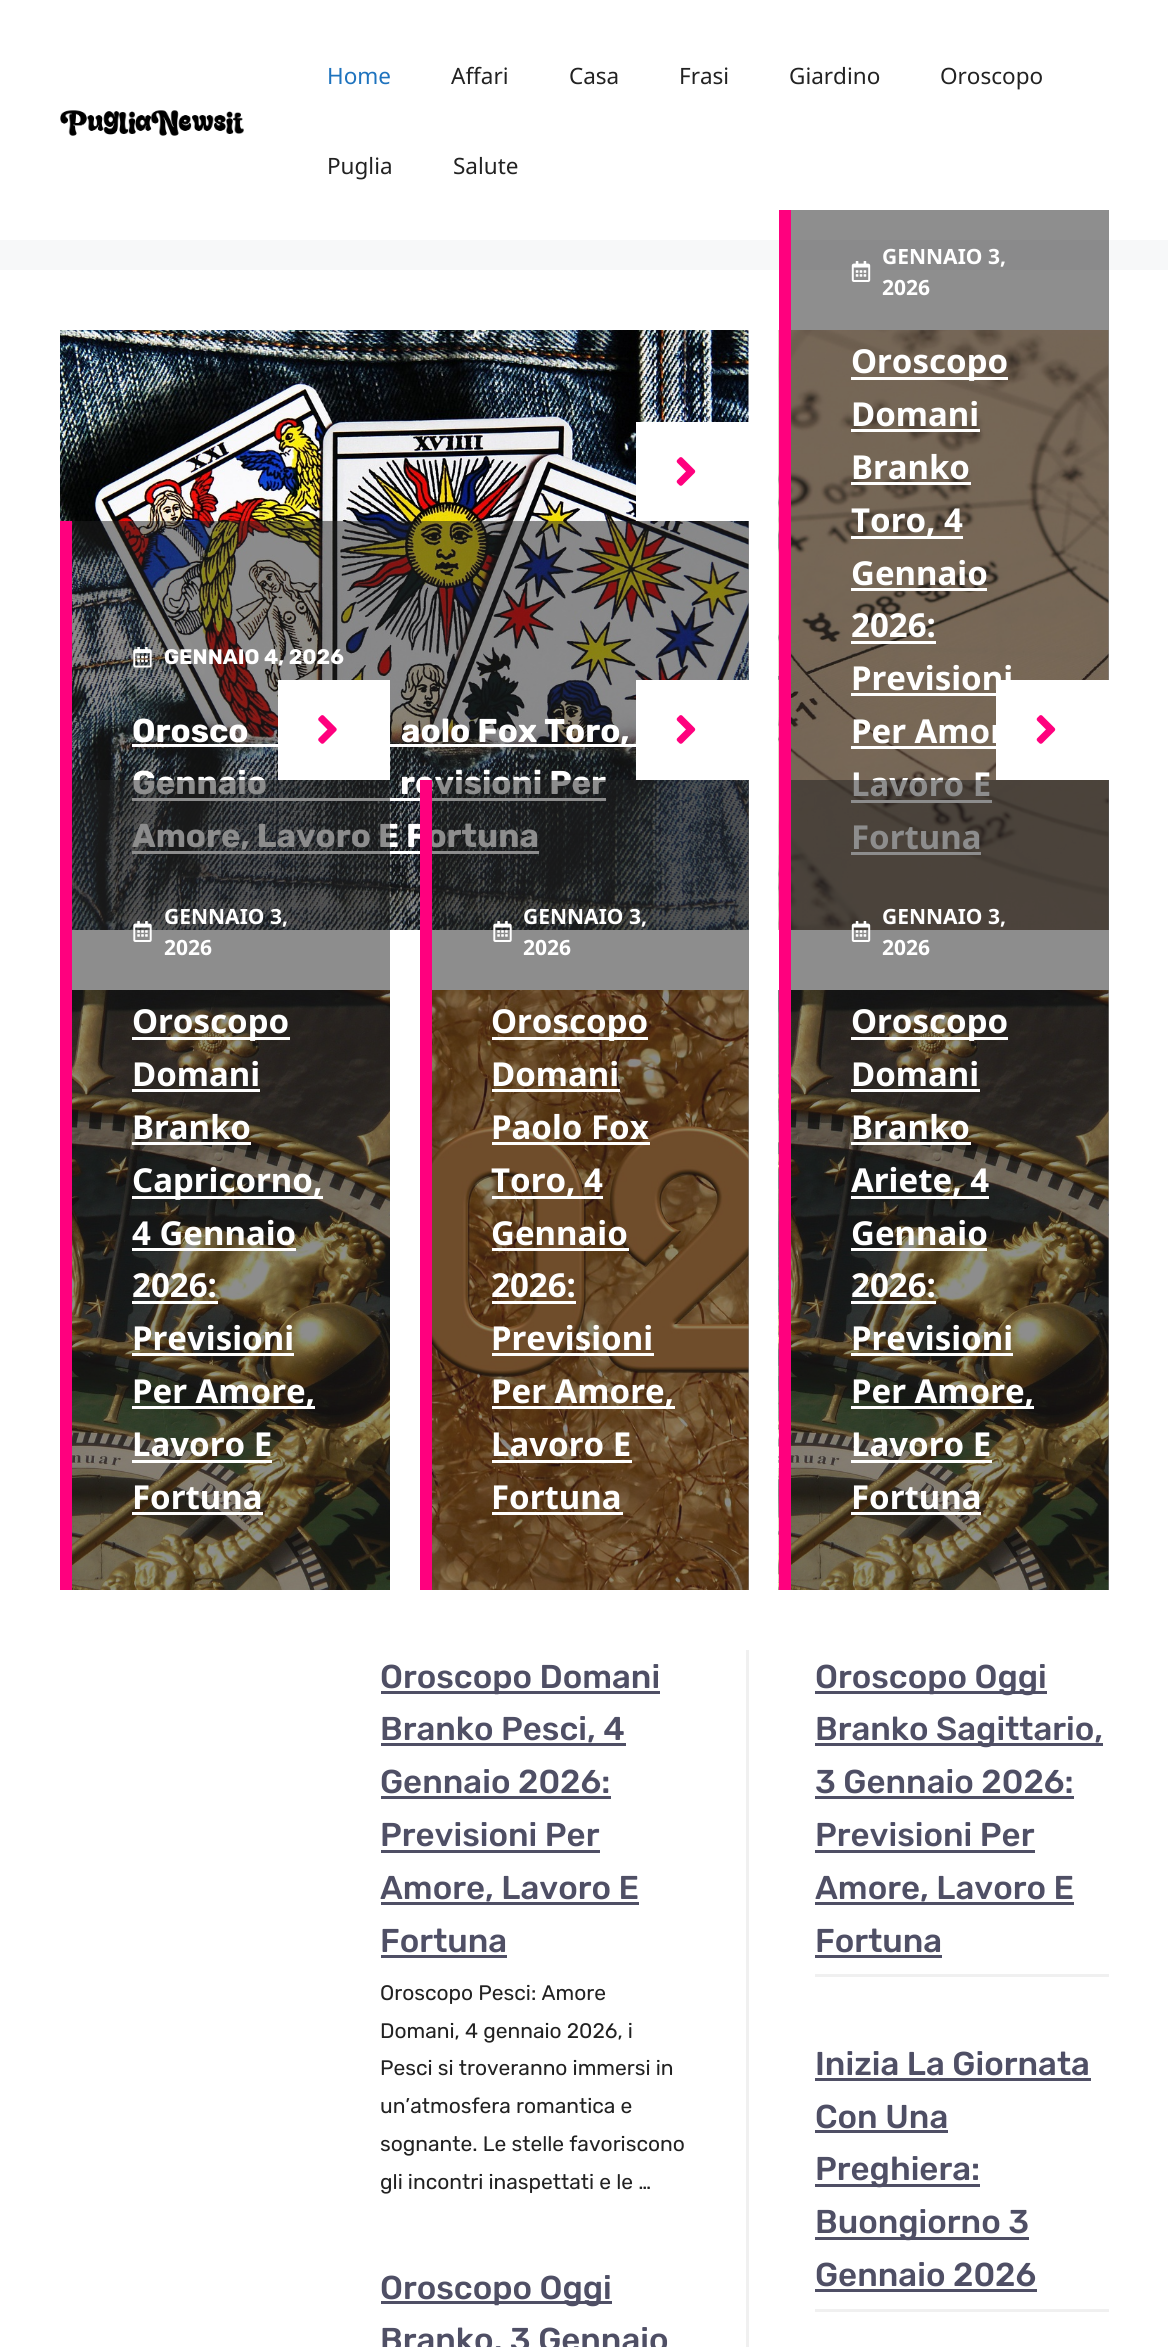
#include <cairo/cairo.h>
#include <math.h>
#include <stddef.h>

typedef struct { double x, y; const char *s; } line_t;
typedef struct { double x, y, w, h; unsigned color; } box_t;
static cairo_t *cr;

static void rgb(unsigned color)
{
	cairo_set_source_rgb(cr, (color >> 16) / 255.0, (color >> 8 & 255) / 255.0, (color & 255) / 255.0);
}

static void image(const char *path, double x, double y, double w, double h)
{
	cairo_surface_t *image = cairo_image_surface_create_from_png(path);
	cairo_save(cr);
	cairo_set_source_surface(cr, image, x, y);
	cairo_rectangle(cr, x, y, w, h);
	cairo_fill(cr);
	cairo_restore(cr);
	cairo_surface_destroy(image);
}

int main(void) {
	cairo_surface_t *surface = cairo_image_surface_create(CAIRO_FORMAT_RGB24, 1168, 2347);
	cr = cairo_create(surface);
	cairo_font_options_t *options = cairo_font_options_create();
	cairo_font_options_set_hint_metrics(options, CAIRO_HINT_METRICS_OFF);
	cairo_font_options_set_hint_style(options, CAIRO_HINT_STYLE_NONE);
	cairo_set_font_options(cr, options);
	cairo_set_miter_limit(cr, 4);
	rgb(0xf7f8f9);
	cairo_paint(cr);
	{
		static const box_t items[] = {
			{791, 240, 318, 30, 0x8a8a8b},
			{0, 0, 1168, 240, 0xffffff},
			{791, 210, 318, 30, 0x8e8e8e},
		};
		for (size_t i = 0; i < sizeof items / sizeof *items; i++) {
			rgb(items[i].color);
			cairo_rectangle(cr, items[i].x, items[i].y, items[i].w, items[i].h);
			cairo_fill(cr);
		}
	}
	image("img/1.png", 60, 110, 184, 26);
	rgb(0xffffff);
	cairo_rectangle(cr, 0, 270, 1168, 2077);
	cairo_fill(cr);
	rgb(0x8e8e8e);
	cairo_rectangle(cr, 791, 270, 318, 660);
	cairo_fill(cr);
	image("img/2.png", 60, 330, 689, 600);
	rgb(0xffffff);
	cairo_rectangle(cr, 636, 422, 113, 99);
	cairo_fill(cr);
	image("img/3.png", 676, 457, 20, 29);
	cairo_set_source_rgba(cr, 0.129, 0.129, 0.129, 0.51);
	cairo_rectangle(cr, 72, 521, 677, 409);
	cairo_fill(cr);
	rgb(0xff007e);
	cairo_rectangle(cr, 60, 521, 12, 1069);
	cairo_fill(cr);
	image("img/4.png", 133, 647, 19, 21);
	{
		static const box_t items[] = {
			{132, 744, 504, 3, 0xffffff},
			{132, 798, 474, 3, 0xffffff},
			{132, 851, 407, 3, 0xffffff},
		};
		for (size_t i = 0; i < sizeof items / sizeof *items; i++) {
			rgb(items[i].color);
			cairo_rectangle(cr, items[i].x, items[i].y, items[i].w, items[i].h);
			cairo_fill(cr);
		}
	}
	image("img/5.png", 778, 330, 331, 600);
	image("img/12.png", 778, 990, 331, 600);
	rgb(0xff007e);
	cairo_rectangle(cr, 779, 210, 12, 1380);
	cairo_fill(cr);
	image("img/6.png", 851, 261, 20, 21);
	{
		static const box_t items[] = {
			{851, 377, 157, 3, 0xffffff},
			{851, 429, 129, 3, 0xffffff},
			{851, 482, 120, 3, 0xffffff},
			{851, 536, 112, 3, 0xffffff},
			{851, 588, 136, 3, 0xffffff},
			{851, 641, 85, 3, 0xffffff},
			{851, 693, 145, 3, 0xffffff},
			{851, 746, 145, 3, 0xffffff},
			{851, 800, 141, 3, 0xffffff},
			{851, 852, 130, 3, 0xffffff},
		};
		for (size_t i = 0; i < sizeof items / sizeof *items; i++) {
			rgb(items[i].color);
			cairo_rectangle(cr, items[i].x, items[i].y, items[i].w, items[i].h);
			cairo_fill(cr);
		}
	}
	image("img/7.png", 72, 990, 318, 600);
	cairo_rectangle(cr, 278, 680, 112, 100);
	cairo_fill(cr);
	image("img/8.png", 318, 715, 19, 29);
	image("img/10.png", 432, 990, 317, 600);
	cairo_rectangle(cr, 636, 680, 113, 100);
	cairo_fill(cr);
	image("img/3.png", 676, 715, 20, 29);
	cairo_rectangle(cr, 996, 680, 113, 100);
	cairo_fill(cr);
	image("img/3.png", 1036, 715, 20, 29);
	{
		static const box_t items[] = {
			{746, 1650, 3, 697, 0xf0f0f0},
			{381, 1691, 279, 3, 0x4f4f65},
			{381, 1743, 245, 3, 0x4f4f65},
			{381, 1796, 230, 3, 0x4f4f65},
			{381, 1850, 219, 3, 0x4f4f65},
			{381, 1902, 258, 3, 0x4f4f65},
			{381, 1955, 126, 3, 0x4f4f65},
			{381, 2301, 231, 3, 0x4f4f65},
			{815, 1974, 294, 3, 0xf0f0f0},
			{815, 1691, 232, 3, 0x4f4f65},
			{815, 1743, 288, 3, 0x4f4f65},
			{815, 1796, 259, 3, 0x4f4f65},
			{815, 1850, 220, 3, 0x4f4f65},
			{815, 1902, 259, 3, 0x4f4f65},
			{815, 1955, 127, 3, 0x4f4f65},
			{815, 2309, 294, 3, 0xf0f0f0},
			{815, 2078, 276, 3, 0x4f4f65},
			{815, 2130, 133, 3, 0x4f4f65},
			{815, 2184, 165, 3, 0x4f4f65},
			{815, 2237, 214, 3, 0x4f4f65},
			{815, 2289, 222, 3, 0x4f4f65},
		};
		for (size_t i = 0; i < sizeof items / sizeof *items; i++) {
			rgb(items[i].color);
			cairo_rectangle(cr, items[i].x, items[i].y, items[i].w, items[i].h);
			cairo_fill(cr);
		}
	}
	cairo_select_font_face(cr, "Noto Sans", CAIRO_FONT_SLANT_NORMAL, CAIRO_FONT_WEIGHT_NORMAL);
	cairo_set_font_size(cr, 22.5);
	rgb(0x1e73be);
	cairo_move_to(cr, 327, 84);
	cairo_show_text(cr, "Home");
	rgb(0x222222);
	{
		static const line_t items[] = {
			{451, 84, "Affari"},
			{569, 84, "Casa"},
			{679, 84, "Frasi"},
			{789, 84, "Giardino"},
			{940, 84, "Oroscopo"},
			{327, 174, "Puglia"},
			{453, 174, "Salute"},
		};
		for (size_t i = 0; i < sizeof items / sizeof *items; i++) {
			cairo_move_to(cr, items[i].x, items[i].y);
			cairo_show_text(cr, items[i].s);
		}
	}
	cairo_select_font_face(cr, "Rubik", CAIRO_FONT_SLANT_NORMAL, CAIRO_FONT_WEIGHT_BOLD);
	cairo_set_font_size(cr, 21);
	rgb(0xffffff);
	cairo_move_to(cr, 164, 664);
	cairo_show_text(cr, "GENNAIO 4, 2026");
	cairo_set_font_size(cr, 33);
	{
		static const line_t items[] = {
			{132, 742, "Orosco"},
			{401, 742, "aolo Fox Toro,"},
			{132, 794, "Gennaio"},
			{400, 794, "revisioni Per"},
			{132, 847, "Amore, Lavoro E Fortuna"},
		};
		for (size_t i = 0; i < sizeof items / sizeof *items; i++) {
			cairo_move_to(cr, items[i].x, items[i].y);
			cairo_show_text(cr, items[i].s);
		}
	}
	cairo_select_font_face(cr, "Noto Sans", CAIRO_FONT_SLANT_NORMAL, CAIRO_FONT_WEIGHT_BOLD);
	cairo_set_font_size(cr, 21);
	cairo_move_to(cr, 882, 264);
	cairo_show_text(cr, "GENNAIO 3,");
	cairo_move_to(cr, 882, 295);
	cairo_show_text(cr, "2026");
	cairo_set_font_size(cr, 33);
	{
		static const line_t items[] = {
			{851, 373, "Oroscopo"},
			{851, 426, "Domani"},
			{851, 479, "Branko"},
			{851, 532, "Toro, 4"},
			{851, 585, "Gennaio"},
			{851, 637, "2026:"},
			{851, 690, "Previsioni"},
			{851, 743, "Per Amor"},
			{851, 796, "Lavoro E"},
			{851, 849, "Fortuna"},
		};
		for (size_t i = 0; i < sizeof items / sizeof *items; i++) {
			cairo_move_to(cr, items[i].x, items[i].y);
			cairo_show_text(cr, items[i].s);
		}
	}
	cairo_set_source_rgba(cr, 0.129, 0.129, 0.129, 0.51);
	cairo_rectangle(cr, 72, 780, 318, 810);
	cairo_fill(cr);
	image("img/9.png", 133, 921, 19, 21);
	cairo_set_font_size(cr, 21);
	rgb(0xffffff);
	cairo_move_to(cr, 164, 924);
	cairo_show_text(cr, "GENNAIO 3,");
	cairo_move_to(cr, 164, 955);
	cairo_show_text(cr, "2026");
	cairo_rectangle(cr, 132, 1037, 158, 3);
	cairo_fill(cr);
	cairo_set_font_size(cr, 33);
	cairo_move_to(cr, 132, 1033);
	cairo_show_text(cr, "Oroscopo");
	cairo_move_to(cr, 132, 1086);
	cairo_show_text(cr, "Domani");
	cairo_rectangle(cr, 132, 1089, 128, 3);
	cairo_fill(cr);
	cairo_move_to(cr, 132, 1139);
	cairo_show_text(cr, "Branko");
	cairo_rectangle(cr, 132, 1142, 119, 3);
	cairo_fill(cr);
	cairo_rectangle(cr, 132, 1196, 191, 3);
	cairo_fill(cr);
	cairo_move_to(cr, 132, 1192);
	cairo_show_text(cr, "Capricorno,");
	cairo_move_to(cr, 132, 1245);
	cairo_show_text(cr, "4 Gennaio");
	cairo_rectangle(cr, 132, 1248, 164, 3);
	cairo_fill(cr);
	cairo_move_to(cr, 132, 1297);
	cairo_show_text(cr, "2026:");
	cairo_rectangle(cr, 132, 1301, 86, 3);
	cairo_fill(cr);
	cairo_move_to(cr, 132, 1350);
	cairo_show_text(cr, "Previsioni");
	cairo_rectangle(cr, 132, 1353, 162, 3);
	cairo_fill(cr);
	cairo_rectangle(cr, 132, 1406, 183, 3);
	cairo_fill(cr);
	cairo_move_to(cr, 132, 1403);
	cairo_show_text(cr, "Per Amore,");
	cairo_move_to(cr, 132, 1456);
	cairo_show_text(cr, "Lavoro E");
	cairo_rectangle(cr, 132, 1460, 140, 3);
	cairo_fill(cr);
	cairo_move_to(cr, 132, 1509);
	cairo_show_text(cr, "Fortuna");
	cairo_rectangle(cr, 132, 1512, 131, 3);
	cairo_fill(cr);
	cairo_set_source_rgba(cr, 0.129, 0.129, 0.129, 0.51);
	cairo_rectangle(cr, 432, 780, 317, 810);
	cairo_fill(cr);
	rgb(0xff007e);
	cairo_rectangle(cr, 420, 780, 12, 810);
	cairo_fill(cr);
	image("img/11.png", 493, 921, 19, 21);
	cairo_set_font_size(cr, 21);
	rgb(0xffffff);
	cairo_move_to(cr, 523, 924);
	cairo_show_text(cr, "GENNAIO 3,");
	cairo_move_to(cr, 523, 955);
	cairo_show_text(cr, "2026");
	cairo_rectangle(cr, 492, 1037, 156, 3);
	cairo_fill(cr);
	cairo_set_font_size(cr, 33);
	cairo_move_to(cr, 491, 1033);
	cairo_show_text(cr, "Oroscopo");
	cairo_move_to(cr, 491, 1086);
	cairo_show_text(cr, "Domani");
	cairo_rectangle(cr, 492, 1089, 128, 3);
	cairo_fill(cr);
	cairo_move_to(cr, 491, 1139);
	cairo_show_text(cr, "Paolo Fox");
	cairo_rectangle(cr, 492, 1142, 158, 3);
	cairo_fill(cr);
	cairo_rectangle(cr, 492, 1196, 111, 3);
	cairo_fill(cr);
	cairo_move_to(cr, 491, 1192);
	cairo_show_text(cr, "Toro, 4");
	cairo_move_to(cr, 491, 1245);
	cairo_show_text(cr, "Gennaio");
	cairo_rectangle(cr, 492, 1248, 137, 3);
	cairo_fill(cr);
	cairo_move_to(cr, 491, 1297);
	cairo_show_text(cr, "2026:");
	cairo_rectangle(cr, 492, 1301, 84, 3);
	cairo_fill(cr);
	cairo_move_to(cr, 491, 1350);
	cairo_show_text(cr, "Previsioni");
	cairo_rectangle(cr, 492, 1353, 162, 3);
	cairo_fill(cr);
	cairo_rectangle(cr, 492, 1406, 183, 3);
	cairo_fill(cr);
	cairo_move_to(cr, 491, 1403);
	cairo_show_text(cr, "Per Amore,");
	cairo_move_to(cr, 491, 1456);
	cairo_show_text(cr, "Lavoro E");
	cairo_rectangle(cr, 492, 1460, 140, 3);
	cairo_fill(cr);
	cairo_move_to(cr, 491, 1509);
	cairo_show_text(cr, "Fortuna");
	cairo_rectangle(cr, 492, 1512, 131, 3);
	cairo_fill(cr);
	cairo_set_source_rgba(cr, 0.129, 0.129, 0.129, 0.51);
	cairo_rectangle(cr, 791, 780, 318, 810);
	cairo_fill(cr);
	image("img/13.png", 851, 921, 20, 21);
	cairo_set_font_size(cr, 21);
	rgb(0xffffff);
	cairo_move_to(cr, 882, 924);
	cairo_show_text(cr, "GENNAIO 3,");
	cairo_move_to(cr, 882, 955);
	cairo_show_text(cr, "2026");
	cairo_rectangle(cr, 851, 1037, 157, 3);
	cairo_fill(cr);
	cairo_set_font_size(cr, 33);
	cairo_move_to(cr, 851, 1033);
	cairo_show_text(cr, "Oroscopo");
	cairo_move_to(cr, 851, 1086);
	cairo_show_text(cr, "Domani");
	cairo_rectangle(cr, 851, 1089, 129, 3);
	cairo_fill(cr);
	cairo_move_to(cr, 851, 1139);
	cairo_show_text(cr, "Branko");
	cairo_rectangle(cr, 851, 1142, 120, 3);
	cairo_fill(cr);
	cairo_rectangle(cr, 851, 1196, 138, 3);
	cairo_fill(cr);
	cairo_move_to(cr, 851, 1192);
	cairo_show_text(cr, "Ariete, 4");
	cairo_move_to(cr, 851, 1245);
	cairo_show_text(cr, "Gennaio");
	cairo_rectangle(cr, 851, 1248, 136, 3);
	cairo_fill(cr);
	cairo_move_to(cr, 851, 1297);
	cairo_show_text(cr, "2026:");
	cairo_rectangle(cr, 851, 1301, 85, 3);
	cairo_fill(cr);
	cairo_move_to(cr, 851, 1350);
	cairo_show_text(cr, "Previsioni");
	cairo_rectangle(cr, 851, 1353, 162, 3);
	cairo_fill(cr);
	cairo_rectangle(cr, 851, 1406, 183, 3);
	cairo_fill(cr);
	cairo_move_to(cr, 851, 1403);
	cairo_show_text(cr, "Per Amore,");
	cairo_move_to(cr, 851, 1456);
	cairo_show_text(cr, "Lavoro E");
	cairo_rectangle(cr, 851, 1460, 141, 3);
	cairo_fill(cr);
	cairo_move_to(cr, 851, 1509);
	cairo_show_text(cr, "Fortuna");
	cairo_rectangle(cr, 851, 1512, 130, 3);
	cairo_fill(cr);
	cairo_select_font_face(cr, "Rubik Medium", CAIRO_FONT_SLANT_NORMAL, CAIRO_FONT_WEIGHT_NORMAL);
	rgb(0x4f4f65);
	{
		static const line_t items[] = {
			{380, 1688, "Oroscopo Domani"},
			{380, 1740, "Branko Pesci, 4"},
			{380, 1793, "Gennaio 2026:"},
			{380, 1846, "Previsioni Per"},
			{380, 1899, "Amore, Lavoro E"},
			{380, 1952, "Fortuna"},
		};
		for (size_t i = 0; i < sizeof items / sizeof *items; i++) {
			cairo_move_to(cr, items[i].x, items[i].y);
			cairo_show_text(cr, items[i].s);
		}
	}
	cairo_select_font_face(cr, "Rubik", CAIRO_FONT_SLANT_NORMAL, CAIRO_FONT_WEIGHT_NORMAL);
	cairo_set_font_size(cr, 21);
	rgb(0x222222);
	{
		static const line_t items[] = {
			{380, 2000, "Oroscopo Pesci: Amore"},
			{380, 2038, "Domani, 4 gennaio 2026, i"},
			{380, 2075, "Pesci si troveranno immersi in"},
			{380, 2113, "un’atmosfera romantica e"},
			{380, 2151, "sognante. Le stelle favoriscono"},
			{380, 2189, "gli incontri inaspettati e le …"},
		};
		for (size_t i = 0; i < sizeof items / sizeof *items; i++) {
			cairo_move_to(cr, items[i].x, items[i].y);
			cairo_show_text(cr, items[i].s);
		}
	}
	cairo_select_font_face(cr, "Rubik Medium", CAIRO_FONT_SLANT_NORMAL, CAIRO_FONT_WEIGHT_NORMAL);
	cairo_set_font_size(cr, 33);
	rgb(0x4f4f65);
	{
		static const line_t items[] = {
			{380, 2299, "Oroscopo Oggi"},
			{380, 2351, "Branko, 3 Gennaio"},
			{815, 1688, "Oroscopo Oggi"},
			{815, 1740, "Branko Sagittario,"},
			{815, 1793, "3 Gennaio 2026:"},
			{815, 1846, "Previsioni Per"},
			{815, 1899, "Amore, Lavoro E"},
			{815, 1952, "Fortuna"},
			{815, 2075, "Inizia La Giornata"},
			{815, 2128, "Con Una"},
			{815, 2180, "Preghiera:"},
			{815, 2233, "Buongiorno 3"},
			{815, 2286, "Gennaio 2026"},
		};
		for (size_t i = 0; i < sizeof items / sizeof *items; i++) {
			cairo_move_to(cr, items[i].x, items[i].y);
			cairo_show_text(cr, items[i].s);
		}
	}
	cairo_surface_write_to_png(surface, "page.png");
	cairo_font_options_destroy(options);
	cairo_destroy(cr);
	cairo_surface_destroy(surface);
	return 0;
}
